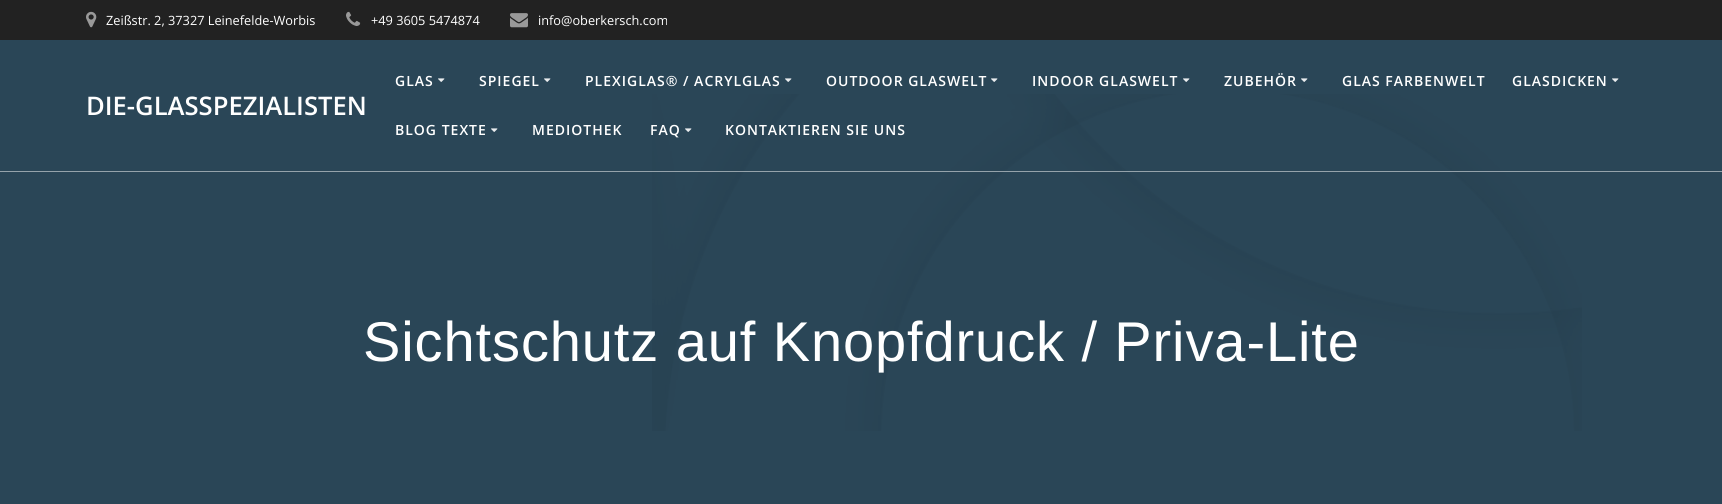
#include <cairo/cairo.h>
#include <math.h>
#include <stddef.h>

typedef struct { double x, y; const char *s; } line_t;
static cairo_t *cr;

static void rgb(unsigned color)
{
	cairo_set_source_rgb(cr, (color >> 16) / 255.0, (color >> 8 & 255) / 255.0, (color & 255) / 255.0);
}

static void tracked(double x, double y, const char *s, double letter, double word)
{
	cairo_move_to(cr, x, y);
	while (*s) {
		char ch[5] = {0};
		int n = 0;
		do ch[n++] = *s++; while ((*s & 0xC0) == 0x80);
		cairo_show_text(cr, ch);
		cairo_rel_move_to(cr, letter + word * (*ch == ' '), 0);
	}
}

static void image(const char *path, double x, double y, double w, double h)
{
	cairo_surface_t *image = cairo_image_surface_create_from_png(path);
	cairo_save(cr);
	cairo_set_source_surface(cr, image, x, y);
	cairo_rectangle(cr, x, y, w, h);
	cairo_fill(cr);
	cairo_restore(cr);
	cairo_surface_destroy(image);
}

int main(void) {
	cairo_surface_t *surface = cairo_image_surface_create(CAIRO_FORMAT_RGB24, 1722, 504);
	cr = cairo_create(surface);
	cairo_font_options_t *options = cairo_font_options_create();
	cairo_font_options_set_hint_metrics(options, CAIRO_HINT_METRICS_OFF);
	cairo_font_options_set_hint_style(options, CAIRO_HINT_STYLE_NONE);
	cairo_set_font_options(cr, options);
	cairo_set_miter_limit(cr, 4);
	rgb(0x2a4657);
	cairo_paint(cr);
	rgb(0x222222);
	cairo_rectangle(cr, 0, 0, 1722, 40);
	cairo_fill(cr);
	image("img/1.png", 86, 11, 11, 17);
	image("img/2.png", 346, 11, 15, 15);
	image("img/3.png", 510, 13, 18, 15);
	image("img/5.png", 652, 94, 930, 337);
	cairo_set_source_rgba(cr, 1, 1, 1, 0.5);
	cairo_rectangle(cr, 0, 171, 1722, 1);
	cairo_fill(cr);
	image("img/4.png", 438, 78, 7, 4);
	image("img/4.png", 544, 78, 7, 4);
	image("img/4.png", 785, 78, 7, 4);
	image("img/4.png", 991, 78, 7, 4);
	image("img/4.png", 1183, 78, 7, 4);
	image("img/4.png", 1301, 78, 7, 4);
	image("img/4.png", 1612, 78, 7, 4);
	image("img/4.png", 491, 128, 7, 4);
	image("img/4.png", 685, 128, 7, 4);
	cairo_select_font_face(cr, "Open Sans", CAIRO_FONT_SLANT_NORMAL, CAIRO_FONT_WEIGHT_NORMAL);
	cairo_set_font_size(cr, 12.75);
	rgb(0xffffff);
	{
		static const line_t items[] = {
			{106, 25, "Zeißstr. 2, 37327 Leinefelde-Worbis"},
			{371, 25, "+49 3605 5474874"},
			{538, 25, "info@oberkersch.com"},
		};
		for (size_t i = 0; i < sizeof items / sizeof *items; i++) {
			cairo_move_to(cr, items[i].x, items[i].y);
			cairo_show_text(cr, items[i].s);
		}
	}
	cairo_select_font_face(cr, "Open Sans SemiBold", CAIRO_FONT_SLANT_NORMAL, CAIRO_FONT_WEIGHT_NORMAL);
	cairo_set_font_size(cr, 25.6);
	cairo_move_to(cr, 86, 115);
	cairo_show_text(cr, "DIE-GLASSPEZIALISTEN");
	cairo_set_font_size(cr, 14);
	{
		static const line_t items[] = {
			{395, 86, "GLAS"},
			{479, 86, "SPIEGEL"},
			{585, 86, "PLEXIGLAS® / ACRYLGLAS"},
			{826, 86, "OUTDOOR GLASWELT"},
			{1032, 86, "INDOOR GLASWELT"},
			{1224, 86, "ZUBEHÖR"},
			{1342, 86, "GLAS FARBENWELT"},
			{1512, 86, "GLASDICKEN"},
			{395, 135, "BLOG TEXTE"},
			{532, 135, "MEDIOTHEK"},
			{650, 135, "FAQ"},
			{725, 135, "KONTAKTIEREN SIE UNS"},
		};
		for (size_t i = 0; i < sizeof items / sizeof *items; i++) {
			tracked(items[i].x, items[i].y, items[i].s, 1, 0);
		}
	}
	cairo_select_font_face(cr, "Liberation Sans", CAIRO_FONT_SLANT_NORMAL, CAIRO_FONT_WEIGHT_NORMAL);
	cairo_set_font_size(cr, 56);
	tracked(363, 361, "Sichtschutz auf Knopfdruck / Priva-Lite", 0.9, 0);
	cairo_surface_write_to_png(surface, "page.png");
	cairo_font_options_destroy(options);
	cairo_destroy(cr);
	cairo_surface_destroy(surface);
	return 0;
}
